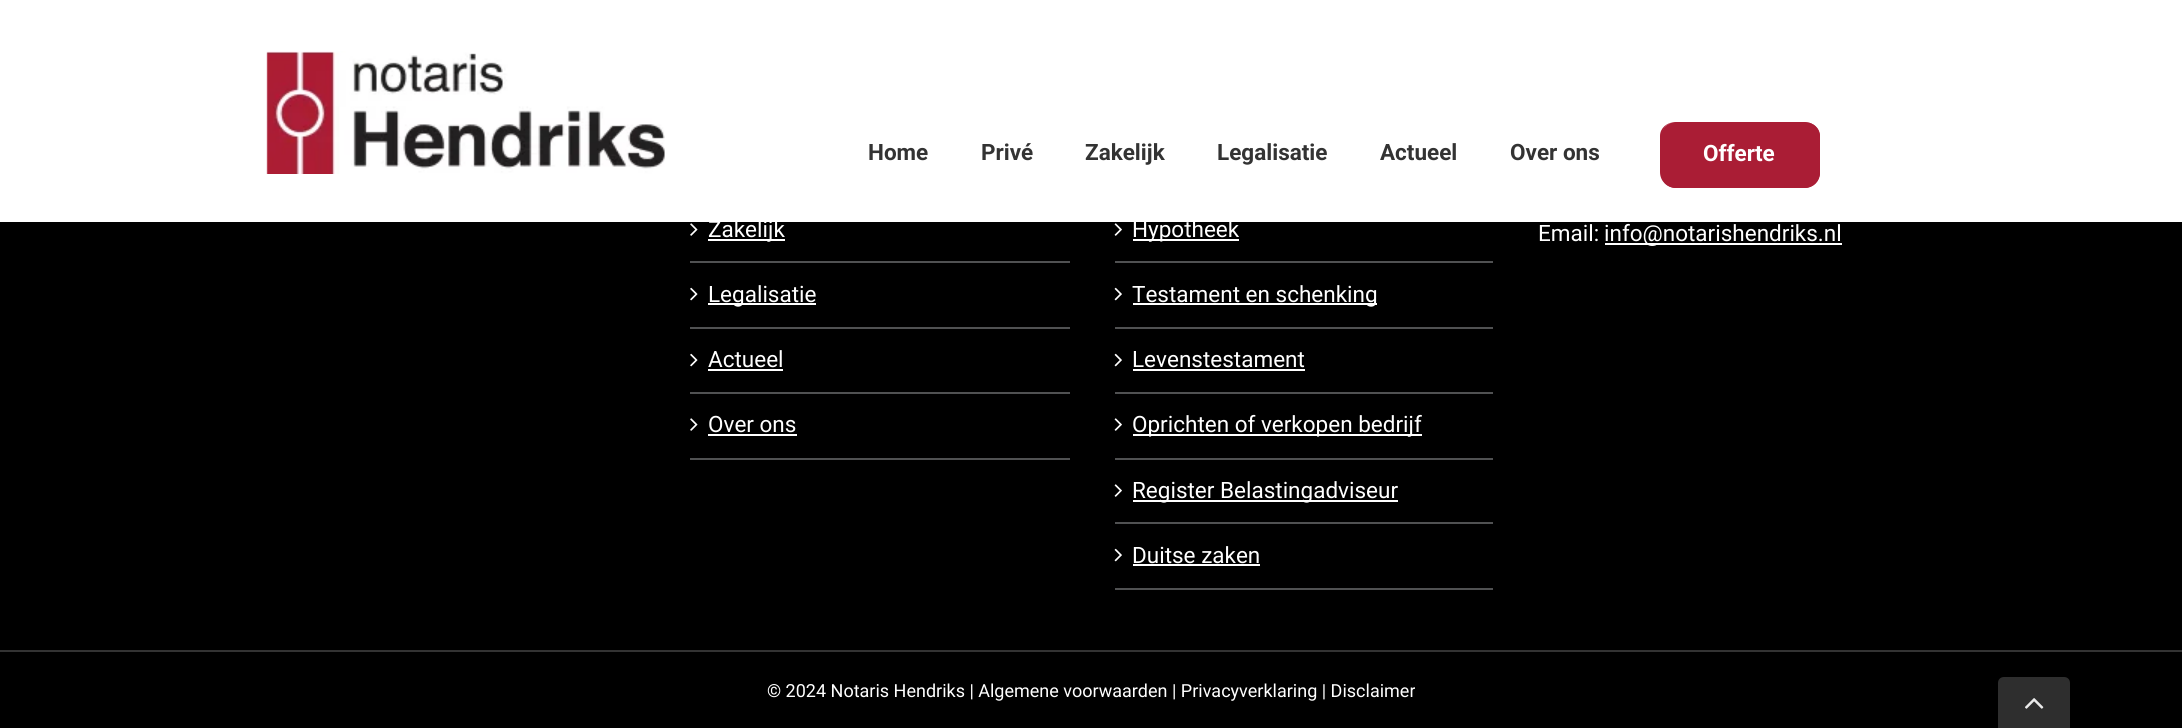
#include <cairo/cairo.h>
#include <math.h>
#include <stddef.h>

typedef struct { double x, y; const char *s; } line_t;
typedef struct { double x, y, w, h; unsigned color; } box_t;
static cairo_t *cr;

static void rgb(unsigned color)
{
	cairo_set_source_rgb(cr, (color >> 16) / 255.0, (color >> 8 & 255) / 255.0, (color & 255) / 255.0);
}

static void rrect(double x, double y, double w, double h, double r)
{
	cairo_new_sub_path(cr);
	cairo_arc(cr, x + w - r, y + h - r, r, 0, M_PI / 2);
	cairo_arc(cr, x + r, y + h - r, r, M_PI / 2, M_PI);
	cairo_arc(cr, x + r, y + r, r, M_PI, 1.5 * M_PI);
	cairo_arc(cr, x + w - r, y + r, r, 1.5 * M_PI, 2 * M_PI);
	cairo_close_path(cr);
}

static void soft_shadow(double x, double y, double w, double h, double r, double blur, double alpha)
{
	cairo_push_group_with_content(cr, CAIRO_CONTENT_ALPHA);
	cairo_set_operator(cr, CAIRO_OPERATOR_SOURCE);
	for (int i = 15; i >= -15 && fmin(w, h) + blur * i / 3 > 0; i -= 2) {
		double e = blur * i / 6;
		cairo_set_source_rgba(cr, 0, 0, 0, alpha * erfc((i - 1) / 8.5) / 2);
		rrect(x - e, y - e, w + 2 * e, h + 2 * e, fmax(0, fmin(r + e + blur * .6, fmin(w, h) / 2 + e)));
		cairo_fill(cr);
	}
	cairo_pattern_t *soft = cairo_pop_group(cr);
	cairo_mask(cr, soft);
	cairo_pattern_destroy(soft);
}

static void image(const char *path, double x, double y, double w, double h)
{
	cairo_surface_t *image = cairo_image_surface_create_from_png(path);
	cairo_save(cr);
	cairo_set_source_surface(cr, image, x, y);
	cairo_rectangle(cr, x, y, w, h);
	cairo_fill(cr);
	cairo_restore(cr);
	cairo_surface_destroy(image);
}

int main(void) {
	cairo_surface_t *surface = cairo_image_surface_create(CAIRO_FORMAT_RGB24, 2182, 728);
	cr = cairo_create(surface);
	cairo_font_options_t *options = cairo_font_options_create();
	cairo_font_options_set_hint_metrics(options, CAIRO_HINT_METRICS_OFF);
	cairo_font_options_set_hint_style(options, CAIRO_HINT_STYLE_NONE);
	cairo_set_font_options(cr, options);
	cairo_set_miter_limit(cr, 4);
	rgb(0x000000);
	cairo_paint(cr);
	image("img/2.png", 690, 223, 8, 13);
	image("img/4.png", 1114, 223, 8, 13);
	soft_shadow(0, 2, 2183, 222, 0, 2, 0.12);
	rgb(0xffffff);
	cairo_rectangle(cr, 0, 0, 2182, 222);
	cairo_fill(cr);
	image("img/1.png", 266, 51, 399, 123);
	rgb(0xaa1d35);
	rrect(1661, 122, 159, 66, 15);
	cairo_fill(cr);
	cairo_set_fill_rule(cr, CAIRO_FILL_RULE_EVEN_ODD);
	cairo_new_path(cr);
	cairo_move_to(cr, 1676, 122);
	cairo_line_to(cr, 1804, 122);
	cairo_curve_to(cr, 1813, 122, 1820, 128, 1820, 136);
	cairo_line_to(cr, 1820, 172);
	cairo_curve_to(cr, 1820, 181, 1813, 188, 1804, 188);
	cairo_line_to(cr, 1676, 188);
	cairo_curve_to(cr, 1667, 188, 1660, 181, 1660, 172);
	cairo_line_to(cr, 1660, 136);
	cairo_curve_to(cr, 1660, 128, 1667, 122, 1676, 122);
	cairo_close_path(cr);
	cairo_move_to(cr, 1676, 122);
	cairo_line_to(cr, 1804, 122);
	cairo_curve_to(cr, 1812, 122, 1818, 128, 1818, 136);
	cairo_line_to(cr, 1818, 172);
	cairo_curve_to(cr, 1818, 180, 1812, 186, 1804, 186);
	cairo_line_to(cr, 1676, 186);
	cairo_curve_to(cr, 1668, 186, 1662, 180, 1662, 172);
	cairo_line_to(cr, 1662, 136);
	cairo_curve_to(cr, 1662, 128, 1668, 122, 1676, 122);
	cairo_close_path(cr);
	cairo_fill(cr);
	{
		static const box_t items[] = {
			{690, 261, 380, 2, 0x505152},
			{708, 239, 77, 2, 0xffffff},
			{690, 327, 380, 2, 0x505152},
		};
		for (size_t i = 0; i < sizeof items / sizeof *items; i++) {
			rgb(items[i].color);
			cairo_rectangle(cr, items[i].x, items[i].y, items[i].w, items[i].h);
			cairo_fill(cr);
		}
	}
	image("img/3.png", 690, 287, 8, 14);
	rgb(0xffffff);
	cairo_rectangle(cr, 708, 303, 108, 2);
	cairo_fill(cr);
	rgb(0x505152);
	cairo_rectangle(cr, 690, 392, 380, 2);
	cairo_fill(cr);
	image("img/3.png", 690, 353, 8, 14);
	rgb(0xffffff);
	cairo_rectangle(cr, 708, 369, 75, 2);
	cairo_fill(cr);
	rgb(0x505152);
	cairo_rectangle(cr, 690, 458, 380, 2);
	cairo_fill(cr);
	image("img/2.png", 690, 418, 8, 13);
	{
		static const box_t items[] = {
			{708, 434, 89, 2, 0xffffff},
			{1115, 261, 378, 2, 0x505152},
			{1133, 239, 106, 2, 0xffffff},
			{1115, 327, 378, 2, 0x505152},
		};
		for (size_t i = 0; i < sizeof items / sizeof *items; i++) {
			rgb(items[i].color);
			cairo_rectangle(cr, items[i].x, items[i].y, items[i].w, items[i].h);
			cairo_fill(cr);
		}
	}
	image("img/5.png", 1114, 287, 8, 14);
	rgb(0xffffff);
	cairo_rectangle(cr, 1133, 303, 244, 2);
	cairo_fill(cr);
	rgb(0x505152);
	cairo_rectangle(cr, 1115, 392, 378, 2);
	cairo_fill(cr);
	image("img/5.png", 1114, 353, 8, 14);
	rgb(0xffffff);
	cairo_rectangle(cr, 1133, 369, 172, 2);
	cairo_fill(cr);
	rgb(0x505152);
	cairo_rectangle(cr, 1115, 458, 378, 2);
	cairo_fill(cr);
	image("img/4.png", 1114, 418, 8, 13);
	rgb(0xffffff);
	cairo_rectangle(cr, 1133, 434, 289, 2);
	cairo_fill(cr);
	rgb(0x505152);
	cairo_rectangle(cr, 1115, 522, 378, 2);
	cairo_fill(cr);
	image("img/4.png", 1114, 484, 8, 13);
	rgb(0xffffff);
	cairo_rectangle(cr, 1133, 500, 265, 2);
	cairo_fill(cr);
	rgb(0x505152);
	cairo_rectangle(cr, 1115, 588, 378, 2);
	cairo_fill(cr);
	image("img/5.png", 1114, 548, 8, 14);
	{
		static const box_t items[] = {
			{1133, 564, 127, 2, 0xffffff},
			{1605, 243, 237, 2, 0xffffff},
			{0, 650, 2182, 2, 0x333333},
		};
		for (size_t i = 0; i < sizeof items / sizeof *items; i++) {
			rgb(items[i].color);
			cairo_rectangle(cr, items[i].x, items[i].y, items[i].w, items[i].h);
			cairo_fill(cr);
		}
	}
	rgb(0x2e2e2e);
	cairo_new_path(cr);
	cairo_move_to(cr, 2004, 677);
	cairo_line_to(cr, 2064, 677);
	cairo_curve_to(cr, 2067.5, 677, 2070, 679.5, 2070, 683);
	cairo_line_to(cr, 2070, 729);
	cairo_line_to(cr, 1998, 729);
	cairo_line_to(cr, 1998, 683);
	cairo_curve_to(cr, 1998, 679.5, 2000.5, 677, 2004, 677);
	cairo_close_path(cr);
	cairo_fill(cr);
	image("img/6.png", 2025, 698, 19, 11);
	cairo_select_font_face(cr, "Roboto", CAIRO_FONT_SLANT_NORMAL, CAIRO_FONT_WEIGHT_BOLD);
	cairo_set_font_size(cr, 22.5);
	rgb(0x333333);
	{
		static const line_t items[] = {
			{868, 160, "Home"},
			{981, 160, "Privé"},
			{1085, 160, "Zakelijk"},
			{1217, 160, "Legalisatie"},
			{1380, 160, "Actueel"},
			{1510, 160, "Over ons"},
		};
		for (size_t i = 0; i < sizeof items / sizeof *items; i++) {
			cairo_move_to(cr, items[i].x, items[i].y);
			cairo_show_text(cr, items[i].s);
		}
	}
	rgb(0xffffff);
	cairo_move_to(cr, 1703, 161);
	cairo_show_text(cr, "Offerte");
	cairo_select_font_face(cr, "Roboto", CAIRO_FONT_SLANT_NORMAL, CAIRO_FONT_WEIGHT_NORMAL);
	{
		static const line_t items[] = {
			{708, 237, "Zakelijk"},
			{708, 302, "Legalisatie"},
			{708, 367, "Actueel"},
			{708, 432, "Over ons"},
			{1132, 237, "Hypotheek"},
			{1132, 302, "Testament en schenking"},
			{1132, 367, "Levenstestament"},
			{1132, 432, "Oprichten of verkopen bedrijf"},
			{1132, 498, "Register Belastingadviseur"},
			{1132, 563, "Duitse zaken"},
			{1538, 241, "Email:"},
			{1604, 241, "info@notarishendriks.nl"},
		};
		for (size_t i = 0; i < sizeof items / sizeof *items; i++) {
			cairo_move_to(cr, items[i].x, items[i].y);
			cairo_show_text(cr, items[i].s);
		}
	}
	cairo_set_font_size(cr, 18);
	cairo_move_to(cr, 767, 697);
	cairo_show_text(cr, "© 2024 Notaris Hendriks | Algemene voorwaarden | Privacyverklaring | Disclaimer");
	cairo_surface_write_to_png(surface, "page.png");
	cairo_font_options_destroy(options);
	cairo_destroy(cr);
	cairo_surface_destroy(surface);
	return 0;
}
